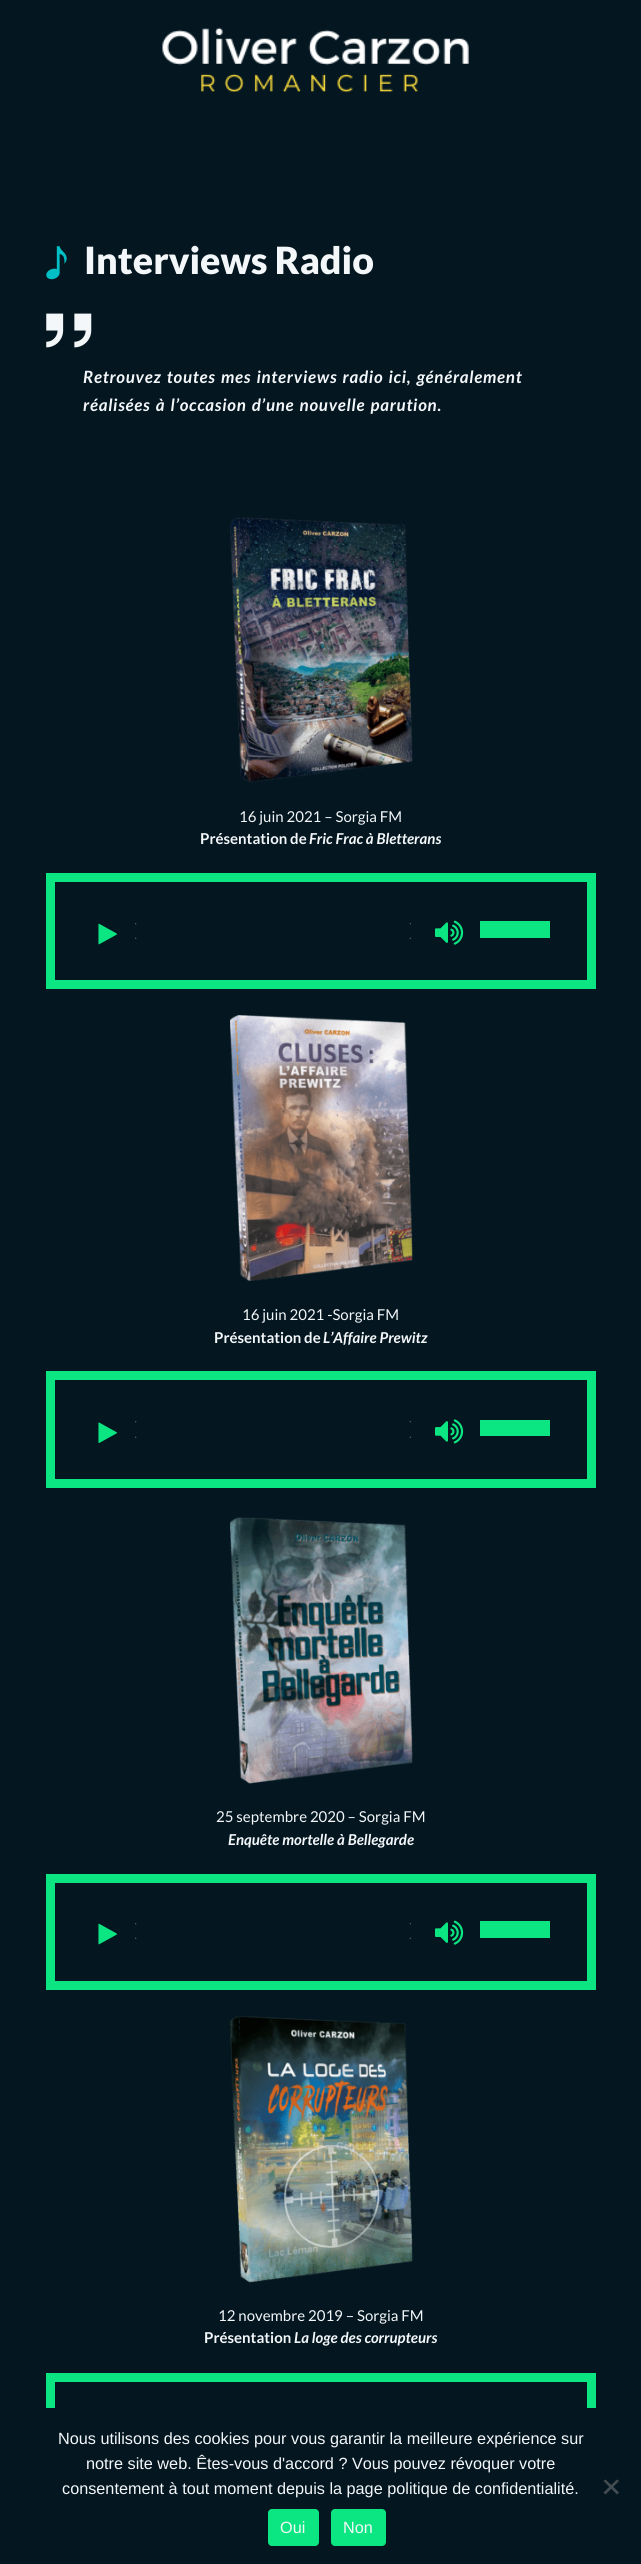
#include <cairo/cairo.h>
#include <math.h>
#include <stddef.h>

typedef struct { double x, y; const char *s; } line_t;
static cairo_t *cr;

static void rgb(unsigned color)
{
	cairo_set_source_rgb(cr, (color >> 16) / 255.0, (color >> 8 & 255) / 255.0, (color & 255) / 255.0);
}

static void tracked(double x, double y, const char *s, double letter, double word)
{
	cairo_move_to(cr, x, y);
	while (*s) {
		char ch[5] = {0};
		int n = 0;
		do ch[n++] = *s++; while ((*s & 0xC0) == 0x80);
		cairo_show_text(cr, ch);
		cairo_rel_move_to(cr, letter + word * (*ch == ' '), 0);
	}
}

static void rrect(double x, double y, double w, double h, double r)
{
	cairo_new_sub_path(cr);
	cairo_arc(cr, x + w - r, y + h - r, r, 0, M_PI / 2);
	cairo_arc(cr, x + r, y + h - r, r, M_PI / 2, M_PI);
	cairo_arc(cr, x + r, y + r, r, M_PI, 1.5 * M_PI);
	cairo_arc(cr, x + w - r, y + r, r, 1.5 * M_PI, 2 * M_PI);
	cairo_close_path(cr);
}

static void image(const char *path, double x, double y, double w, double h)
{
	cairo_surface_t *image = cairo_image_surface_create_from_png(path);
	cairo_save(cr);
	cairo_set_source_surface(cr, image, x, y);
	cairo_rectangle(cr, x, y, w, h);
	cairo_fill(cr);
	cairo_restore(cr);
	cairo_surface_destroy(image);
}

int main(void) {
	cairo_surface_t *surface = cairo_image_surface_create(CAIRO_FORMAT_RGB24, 641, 2564);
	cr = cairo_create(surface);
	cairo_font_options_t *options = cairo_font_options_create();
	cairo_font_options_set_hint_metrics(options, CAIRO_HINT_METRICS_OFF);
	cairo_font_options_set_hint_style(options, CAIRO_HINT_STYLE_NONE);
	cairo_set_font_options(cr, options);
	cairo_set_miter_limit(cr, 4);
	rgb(0x041721);
	cairo_paint(cr);
	image("img/1.png", 162, 27, 307, 66);
	image("img/2.png", 46, 246, 21, 34);
	image("img/3.png", 46, 313, 46, 35);
	image("img/4.png", 230, 517, 183, 266);
	cairo_rectangle(cr, 50.5, 877.5, 541, 107);
	rgb(0x0ce682);
	cairo_set_line_width(cr, 9);
	cairo_stroke(cr);
	image("img/5.png", 98, 923, 19, 22);
	rgb(0x57646a);
	cairo_rectangle(cr, 135, 923, 276, 16);
	cairo_fill(cr);
	rgb(0x041721);
	rrect(135, 923, 276, 16, 2.5);
	cairo_fill(cr);
	image("img/6.png", 435, 920, 29, 25);
	rgb(0x0ce682);
	cairo_rectangle(cr, 480, 921, 70, 17);
	cairo_fill(cr);
	image("img/7.png", 230, 1015, 183, 266);
	cairo_rectangle(cr, 50.5, 1375.5, 541, 108);
	cairo_stroke(cr);
	image("img/8.png", 98, 1422, 20, 21);
	rgb(0x57646a);
	cairo_rectangle(cr, 135, 1421, 276, 17);
	cairo_fill(cr);
	rgb(0x041721);
	rrect(135, 1421, 276, 17, 2.5);
	cairo_fill(cr);
	image("img/9.png", 435, 1419, 29, 25);
	rgb(0x0ce682);
	cairo_rectangle(cr, 480, 1420, 70, 16);
	cairo_fill(cr);
	image("img/10.png", 230, 1517, 183, 267);
	cairo_rectangle(cr, 50.5, 1878.5, 541, 107);
	cairo_stroke(cr);
	image("img/5.png", 98, 1923, 19, 22);
	rgb(0x57646a);
	cairo_rectangle(cr, 135, 1923, 276, 16);
	cairo_fill(cr);
	rgb(0x041721);
	rrect(135, 1923, 276, 16, 2.5);
	cairo_fill(cr);
	image("img/6.png", 435, 1920, 29, 25);
	rgb(0x0ce682);
	cairo_rectangle(cr, 480, 1921, 70, 17);
	cairo_fill(cr);
	image("img/11.png", 230, 2016, 183, 267);
	cairo_rectangle(cr, 50.5, 2377.5, 541, 107);
	cairo_stroke(cr);
	rgb(0x041721);
	cairo_rectangle(cr, 46, 2408, 550, 81);
	cairo_fill(cr);
	rgb(0x424c51);
	cairo_new_path(cr);
	cairo_move_to(cr, 617, 2479.5);
	cairo_line_to(cr, 619, 2481);
	cairo_line_to(cr, 605.5, 2494.5);
	cairo_line_to(cr, 603.5, 2492.5);
	cairo_close_path(cr);
	cairo_fill(cr);
	cairo_new_path(cr);
	cairo_move_to(cr, 603.5, 2481);
	cairo_line_to(cr, 605.5, 2479.5);
	cairo_line_to(cr, 619, 2492.5);
	cairo_line_to(cr, 617, 2494.5);
	cairo_close_path(cr);
	cairo_fill(cr);
	rgb(0x0ce682);
	rrect(268, 2509, 51, 37, 4);
	cairo_fill(cr);
	rrect(331, 2509, 55, 37, 4);
	cairo_fill(cr);
	cairo_select_font_face(cr, "Lato Black", CAIRO_FONT_SLANT_NORMAL, CAIRO_FONT_WEIGHT_NORMAL);
	cairo_set_font_size(cr, 37.5);
	rgb(0xf4f7f9);
	cairo_move_to(cr, 84, 274);
	cairo_show_text(cr, "Interviews Radio");
	cairo_select_font_face(cr, "Lato", CAIRO_FONT_SLANT_ITALIC, CAIRO_FONT_WEIGHT_BOLD);
	cairo_set_font_size(cr, 16.9);
	tracked(83, 383, "Retrouvez toutes mes interviews radio ici, généralement", 0.75, 1.25);
	tracked(83, 411, "réalisées à l’occasion d’une nouvelle parution.", 0.75, 1.25);
	cairo_select_font_face(cr, "Lato", CAIRO_FONT_SLANT_NORMAL, CAIRO_FONT_WEIGHT_NORMAL);
	cairo_set_font_size(cr, 15);
	cairo_move_to(cr, 239, 822);
	cairo_show_text(cr, "16 juin 2021 – Sorgia FM");
	cairo_select_font_face(cr, "Lato", CAIRO_FONT_SLANT_NORMAL, CAIRO_FONT_WEIGHT_BOLD);
	cairo_move_to(cr, 200, 844);
	cairo_show_text(cr, "Présentation de");
	cairo_select_font_face(cr, "Lato", CAIRO_FONT_SLANT_ITALIC, CAIRO_FONT_WEIGHT_BOLD);
	cairo_move_to(cr, 309, 844);
	cairo_show_text(cr, "Fric Frac à Bletterans");
	cairo_select_font_face(cr, "Lato", CAIRO_FONT_SLANT_NORMAL, CAIRO_FONT_WEIGHT_NORMAL);
	cairo_move_to(cr, 242, 1320);
	cairo_show_text(cr, "16 juin 2021 -Sorgia FM");
	cairo_select_font_face(cr, "Lato", CAIRO_FONT_SLANT_NORMAL, CAIRO_FONT_WEIGHT_BOLD);
	cairo_move_to(cr, 214, 1343);
	cairo_show_text(cr, "Présentation de");
	cairo_select_font_face(cr, "Lato", CAIRO_FONT_SLANT_ITALIC, CAIRO_FONT_WEIGHT_BOLD);
	cairo_move_to(cr, 323, 1343);
	cairo_show_text(cr, "L’Affaire Prewitz");
	cairo_select_font_face(cr, "Lato", CAIRO_FONT_SLANT_NORMAL, CAIRO_FONT_WEIGHT_NORMAL);
	cairo_move_to(cr, 216, 1822);
	cairo_show_text(cr, "25 septembre 2020 – Sorgia FM");
	cairo_select_font_face(cr, "Lato", CAIRO_FONT_SLANT_ITALIC, CAIRO_FONT_WEIGHT_BOLD);
	cairo_move_to(cr, 228, 1845);
	cairo_show_text(cr, "Enquête mortelle à Bellegarde");
	cairo_select_font_face(cr, "Lato", CAIRO_FONT_SLANT_NORMAL, CAIRO_FONT_WEIGHT_NORMAL);
	cairo_move_to(cr, 218, 2321);
	cairo_show_text(cr, "12 novembre 2019 – Sorgia FM");
	cairo_select_font_face(cr, "Lato", CAIRO_FONT_SLANT_NORMAL, CAIRO_FONT_WEIGHT_BOLD);
	cairo_move_to(cr, 204, 2343);
	cairo_show_text(cr, "Présentation");
	cairo_select_font_face(cr, "Lato", CAIRO_FONT_SLANT_ITALIC, CAIRO_FONT_WEIGHT_BOLD);
	cairo_move_to(cr, 294, 2343);
	cairo_show_text(cr, "La loge des corrupteurs");
	cairo_select_font_face(cr, "Liberation Sans", CAIRO_FONT_SLANT_NORMAL, CAIRO_FONT_WEIGHT_NORMAL);
	cairo_set_font_size(cr, 16.25);
	{
		static const line_t items[] = {
			{58, 2444, "Nous utilisons des cookies pour vous garantir la meilleure expérience sur"},
			{86, 2469, "notre site web. Êtes-vous d'accord ? Vous pouvez révoquer votre"},
			{62, 2494, "consentement à tout moment depuis la page politique de confidentialité."},
			{280, 2533, "Oui"},
			{343, 2533, "Non"},
		};
		for (size_t i = 0; i < sizeof items / sizeof *items; i++) {
			cairo_move_to(cr, items[i].x, items[i].y);
			cairo_show_text(cr, items[i].s);
		}
	}
	cairo_surface_write_to_png(surface, "page.png");
	cairo_font_options_destroy(options);
	cairo_destroy(cr);
	cairo_surface_destroy(surface);
	return 0;
}
